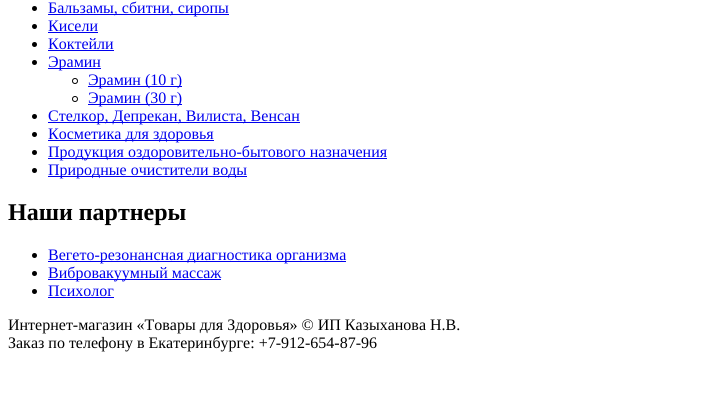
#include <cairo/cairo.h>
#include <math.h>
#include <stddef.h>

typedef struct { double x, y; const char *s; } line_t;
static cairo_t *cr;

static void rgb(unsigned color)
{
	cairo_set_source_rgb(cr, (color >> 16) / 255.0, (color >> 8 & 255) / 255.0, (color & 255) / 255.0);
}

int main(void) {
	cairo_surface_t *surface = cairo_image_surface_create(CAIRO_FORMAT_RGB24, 725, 411);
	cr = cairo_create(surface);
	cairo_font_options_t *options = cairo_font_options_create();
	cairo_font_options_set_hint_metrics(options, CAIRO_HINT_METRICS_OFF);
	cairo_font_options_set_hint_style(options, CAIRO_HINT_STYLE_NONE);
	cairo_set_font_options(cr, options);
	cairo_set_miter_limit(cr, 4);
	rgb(0xffffff);
	cairo_paint(cr);
	rgb(0x000000);
	cairo_arc(cr, 34.5, 8.5, 2.5, 0, 2 * M_PI);
	cairo_fill(cr);
	rgb(0x0000ee);
	cairo_rectangle(cr, 48, 14, 181, 1);
	cairo_fill(cr);
	rgb(0x000000);
	cairo_arc(cr, 34.5, 26.5, 2.5, 0, 2 * M_PI);
	cairo_fill(cr);
	rgb(0x0000ee);
	cairo_rectangle(cr, 48, 32, 50, 1);
	cairo_fill(cr);
	rgb(0x000000);
	cairo_arc(cr, 34.5, 44.5, 2.5, 0, 2 * M_PI);
	cairo_fill(cr);
	rgb(0x0000ee);
	cairo_rectangle(cr, 48, 50, 66, 1);
	cairo_fill(cr);
	rgb(0x000000);
	cairo_arc(cr, 34.5, 62.5, 2.5, 0, 2 * M_PI);
	cairo_fill(cr);
	rgb(0x0000ee);
	cairo_rectangle(cr, 48, 68, 53, 1);
	cairo_fill(cr);
	cairo_arc(cr, 75, 81, 2.5, 0, 2 * M_PI);
	rgb(0x000000);
	cairo_set_line_width(cr, 1);
	cairo_stroke(cr);
	rgb(0x0000ee);
	cairo_rectangle(cr, 88, 86, 94, 1);
	cairo_fill(cr);
	cairo_arc(cr, 75, 99, 2.5, 0, 2 * M_PI);
	rgb(0x000000);
	cairo_stroke(cr);
	rgb(0x0000ee);
	cairo_rectangle(cr, 88, 104, 94, 1);
	cairo_fill(cr);
	rgb(0x000000);
	cairo_arc(cr, 34.5, 116.5, 2.5, 0, 2 * M_PI);
	cairo_fill(cr);
	rgb(0x0000ee);
	cairo_rectangle(cr, 48, 122, 252, 1);
	cairo_fill(cr);
	rgb(0x000000);
	cairo_arc(cr, 34.5, 134.5, 2.5, 0, 2 * M_PI);
	cairo_fill(cr);
	rgb(0x0000ee);
	cairo_rectangle(cr, 48, 140, 166, 1);
	cairo_fill(cr);
	rgb(0x000000);
	cairo_arc(cr, 34.5, 152.5, 2.5, 0, 2 * M_PI);
	cairo_fill(cr);
	rgb(0x0000ee);
	cairo_rectangle(cr, 48, 158, 339, 1);
	cairo_fill(cr);
	rgb(0x000000);
	cairo_arc(cr, 34.5, 170.5, 2.5, 0, 2 * M_PI);
	cairo_fill(cr);
	rgb(0x0000ee);
	cairo_rectangle(cr, 48, 176, 199, 1);
	cairo_fill(cr);
	rgb(0x000000);
	cairo_arc(cr, 34.5, 255.5, 2.5, 0, 2 * M_PI);
	cairo_fill(cr);
	rgb(0x0000ee);
	cairo_rectangle(cr, 48, 261, 298, 1);
	cairo_fill(cr);
	rgb(0x000000);
	cairo_arc(cr, 34.5, 273.5, 2.5, 0, 2 * M_PI);
	cairo_fill(cr);
	rgb(0x0000ee);
	cairo_rectangle(cr, 48, 279, 173, 1);
	cairo_fill(cr);
	rgb(0x000000);
	cairo_arc(cr, 34.5, 291.5, 2.5, 0, 2 * M_PI);
	cairo_fill(cr);
	rgb(0x0000ee);
	cairo_rectangle(cr, 48, 297, 66, 1);
	cairo_fill(cr);
	cairo_select_font_face(cr, "Liberation Serif", CAIRO_FONT_SLANT_NORMAL, CAIRO_FONT_WEIGHT_NORMAL);
	cairo_set_font_size(cr, 16);
	{
		static const line_t items[] = {
			{48, 13, "Бальзамы, сбитни, сиропы"},
			{48, 31, "Кисели"},
			{48, 49, "Коктейли"},
			{48, 67, "Эрамин"},
			{88, 85, "Эрамин (10 г)"},
			{88, 103, "Эрамин (30 г)"},
			{48, 121, "Стелкор, Депрекан, Вилиста, Венсан"},
			{48, 139, "Косметика для здоровья"},
			{48, 157, "Продукция оздоровительно-бытового назначения"},
			{48, 175, "Природные очистители воды"},
		};
		for (size_t i = 0; i < sizeof items / sizeof *items; i++) {
			cairo_move_to(cr, items[i].x, items[i].y);
			cairo_show_text(cr, items[i].s);
		}
	}
	cairo_select_font_face(cr, "Liberation Serif", CAIRO_FONT_SLANT_NORMAL, CAIRO_FONT_WEIGHT_BOLD);
	cairo_set_font_size(cr, 24);
	rgb(0x000000);
	cairo_move_to(cr, 8, 220);
	cairo_show_text(cr, "Наши партнеры");
	cairo_select_font_face(cr, "Liberation Serif", CAIRO_FONT_SLANT_NORMAL, CAIRO_FONT_WEIGHT_NORMAL);
	cairo_set_font_size(cr, 16);
	rgb(0x0000ee);
	{
		static const line_t items[] = {
			{48, 260, "Вегето-резонансная диагностика организма"},
			{48, 278, "Вибровакуумный массаж"},
			{48, 296, "Психолог"},
		};
		for (size_t i = 0; i < sizeof items / sizeof *items; i++) {
			cairo_move_to(cr, items[i].x, items[i].y);
			cairo_show_text(cr, items[i].s);
		}
	}
	rgb(0x000000);
	cairo_move_to(cr, 8, 330);
	cairo_show_text(cr, "Интернет-магазин «Товары для Здоровья» © ИП Казыханова Н.В.");
	cairo_move_to(cr, 8, 348);
	cairo_show_text(cr, "Заказ по телефону в Екатеринбурге: +7-912-654-87-96");
	cairo_surface_write_to_png(surface, "page.png");
	cairo_font_options_destroy(options);
	cairo_destroy(cr);
	cairo_surface_destroy(surface);
	return 0;
}
